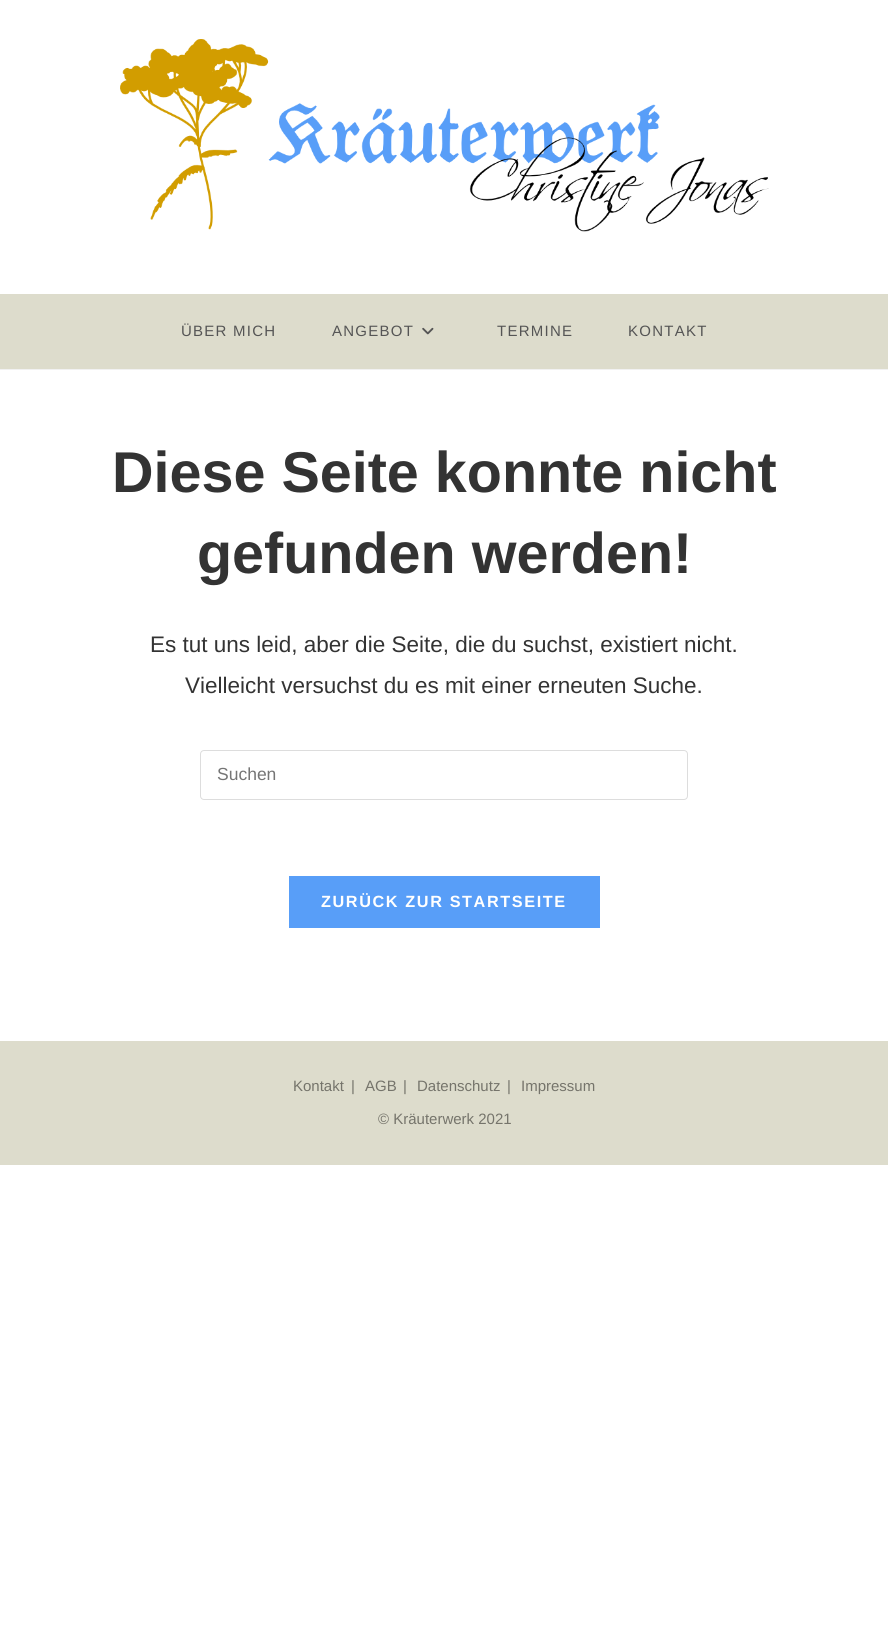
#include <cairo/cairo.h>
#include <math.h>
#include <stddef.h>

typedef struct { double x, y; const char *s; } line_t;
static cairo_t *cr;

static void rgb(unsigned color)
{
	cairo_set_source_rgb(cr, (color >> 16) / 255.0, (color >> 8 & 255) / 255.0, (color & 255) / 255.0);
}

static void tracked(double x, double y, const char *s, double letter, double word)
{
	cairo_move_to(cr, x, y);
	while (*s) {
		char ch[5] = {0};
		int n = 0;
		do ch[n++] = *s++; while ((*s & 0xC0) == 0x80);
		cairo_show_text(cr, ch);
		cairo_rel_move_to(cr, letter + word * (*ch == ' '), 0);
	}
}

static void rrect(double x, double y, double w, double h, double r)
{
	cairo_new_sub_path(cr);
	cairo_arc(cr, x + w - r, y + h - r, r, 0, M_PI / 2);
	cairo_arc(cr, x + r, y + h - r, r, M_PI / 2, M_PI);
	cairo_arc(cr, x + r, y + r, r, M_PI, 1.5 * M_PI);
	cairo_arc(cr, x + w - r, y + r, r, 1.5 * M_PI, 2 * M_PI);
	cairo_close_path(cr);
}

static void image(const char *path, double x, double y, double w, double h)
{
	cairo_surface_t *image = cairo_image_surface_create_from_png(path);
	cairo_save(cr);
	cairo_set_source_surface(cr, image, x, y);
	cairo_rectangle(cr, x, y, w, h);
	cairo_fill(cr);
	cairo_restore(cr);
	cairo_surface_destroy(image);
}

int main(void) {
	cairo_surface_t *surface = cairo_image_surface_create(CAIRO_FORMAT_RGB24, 888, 1643);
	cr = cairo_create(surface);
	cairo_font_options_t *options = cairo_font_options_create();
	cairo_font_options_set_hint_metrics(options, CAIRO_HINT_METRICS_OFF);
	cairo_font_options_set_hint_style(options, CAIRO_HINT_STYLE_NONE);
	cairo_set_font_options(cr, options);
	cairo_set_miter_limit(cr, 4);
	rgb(0xffffff);
	cairo_paint(cr);
	rgb(0xf1f1f1);
	cairo_rectangle(cr, 0, 369, 888, 1);
	cairo_fill(cr);
	image("img/1.png", 120, 39, 649, 193);
	rgb(0xdddccc);
	cairo_rectangle(cr, 0, 294, 888, 75);
	cairo_fill(cr);
	image("img/2.png", 422, 327, 12, 8);
	rrect(200.5, 750.5, 487, 49, 3.5);
	rgb(0xdddddd);
	cairo_set_line_width(cr, 1);
	cairo_stroke(cr);
	rgb(0x589ef8);
	cairo_rectangle(cr, 289, 876, 311, 52);
	cairo_fill(cr);
	rgb(0xdddccc);
	cairo_rectangle(cr, 0, 1041, 888, 124);
	cairo_fill(cr);
	cairo_select_font_face(cr, "Liberation Sans", CAIRO_FONT_SLANT_NORMAL, CAIRO_FONT_WEIGHT_NORMAL);
	cairo_set_font_size(cr, 15);
	rgb(0x555555);
	{
		static const line_t items[] = {
			{181, 336, "ÜBER MICH"},
			{332, 336, "ANGEBOT"},
			{497, 336, "TERMINE"},
			{628, 336, "KONTAKT"},
		};
		for (size_t i = 0; i < sizeof items / sizeof *items; i++) {
			tracked(items[i].x, items[i].y, items[i].s, 1.25, 0);
		}
	}
	cairo_select_font_face(cr, "Liberation Sans", CAIRO_FONT_SLANT_NORMAL, CAIRO_FONT_WEIGHT_BOLD);
	cairo_set_font_size(cr, 57.5);
	rgb(0x333333);
	cairo_move_to(cr, 112, 492);
	cairo_show_text(cr, "Diese Seite konnte nicht");
	cairo_move_to(cr, 197, 573);
	cairo_show_text(cr, "gefunden werden!");
	cairo_select_font_face(cr, "Liberation Sans", CAIRO_FONT_SLANT_NORMAL, CAIRO_FONT_WEIGHT_NORMAL);
	cairo_set_font_size(cr, 22.5);
	cairo_move_to(cr, 150, 652);
	cairo_show_text(cr, "Es tut uns leid, aber die Seite, die du suchst, existiert nicht.");
	cairo_move_to(cr, 185, 693);
	cairo_show_text(cr, "Vielleicht versuchst du es mit einer erneuten Suche.");
	cairo_set_font_size(cr, 17.5);
	rgb(0x757575);
	cairo_move_to(cr, 217, 780);
	cairo_show_text(cr, "Suchen");
	cairo_select_font_face(cr, "Liberation Sans", CAIRO_FONT_SLANT_NORMAL, CAIRO_FONT_WEIGHT_BOLD);
	cairo_set_font_size(cr, 16.25);
	rgb(0xffffff);
	tracked(321, 907, "ZURÜCK ZUR STARTSEITE", 1.6, 0);
	cairo_select_font_face(cr, "Liberation Sans", CAIRO_FONT_SLANT_NORMAL, CAIRO_FONT_WEIGHT_NORMAL);
	cairo_set_font_size(cr, 15);
	rgb(0x75746b);
	{
		static const line_t items[] = {
			{293, 1091, "Kontakt"},
			{351, 1091, "|"},
			{365, 1091, "AGB"},
			{403, 1091, "|"},
			{417, 1091, "Datenschutz"},
			{507, 1091, "|"},
			{521, 1091, "Impressum"},
			{378, 1124, "© Kräuterwerk 2021"},
		};
		for (size_t i = 0; i < sizeof items / sizeof *items; i++) {
			cairo_move_to(cr, items[i].x, items[i].y);
			cairo_show_text(cr, items[i].s);
		}
	}
	cairo_surface_write_to_png(surface, "page.png");
	cairo_font_options_destroy(options);
	cairo_destroy(cr);
	cairo_surface_destroy(surface);
	return 0;
}
